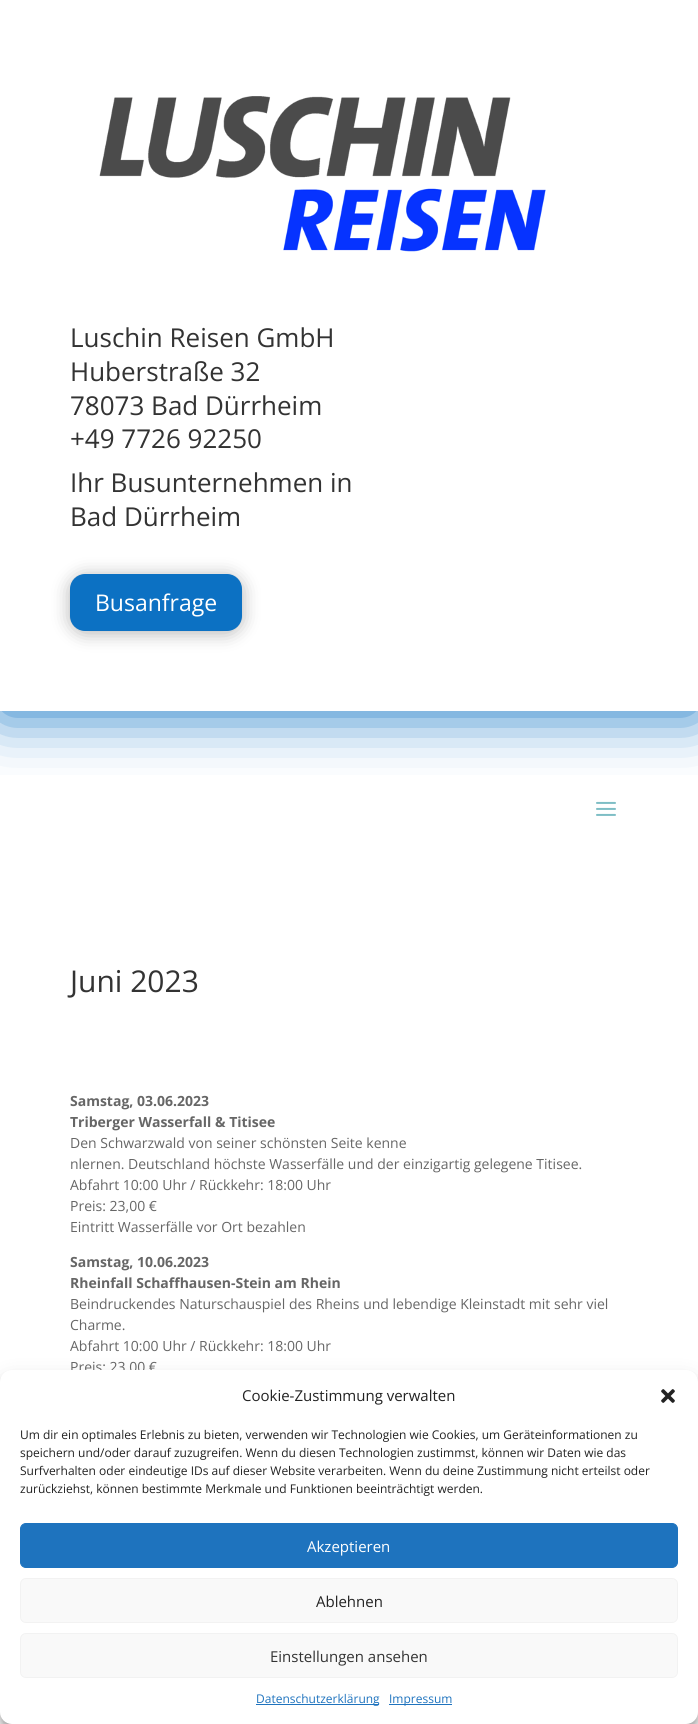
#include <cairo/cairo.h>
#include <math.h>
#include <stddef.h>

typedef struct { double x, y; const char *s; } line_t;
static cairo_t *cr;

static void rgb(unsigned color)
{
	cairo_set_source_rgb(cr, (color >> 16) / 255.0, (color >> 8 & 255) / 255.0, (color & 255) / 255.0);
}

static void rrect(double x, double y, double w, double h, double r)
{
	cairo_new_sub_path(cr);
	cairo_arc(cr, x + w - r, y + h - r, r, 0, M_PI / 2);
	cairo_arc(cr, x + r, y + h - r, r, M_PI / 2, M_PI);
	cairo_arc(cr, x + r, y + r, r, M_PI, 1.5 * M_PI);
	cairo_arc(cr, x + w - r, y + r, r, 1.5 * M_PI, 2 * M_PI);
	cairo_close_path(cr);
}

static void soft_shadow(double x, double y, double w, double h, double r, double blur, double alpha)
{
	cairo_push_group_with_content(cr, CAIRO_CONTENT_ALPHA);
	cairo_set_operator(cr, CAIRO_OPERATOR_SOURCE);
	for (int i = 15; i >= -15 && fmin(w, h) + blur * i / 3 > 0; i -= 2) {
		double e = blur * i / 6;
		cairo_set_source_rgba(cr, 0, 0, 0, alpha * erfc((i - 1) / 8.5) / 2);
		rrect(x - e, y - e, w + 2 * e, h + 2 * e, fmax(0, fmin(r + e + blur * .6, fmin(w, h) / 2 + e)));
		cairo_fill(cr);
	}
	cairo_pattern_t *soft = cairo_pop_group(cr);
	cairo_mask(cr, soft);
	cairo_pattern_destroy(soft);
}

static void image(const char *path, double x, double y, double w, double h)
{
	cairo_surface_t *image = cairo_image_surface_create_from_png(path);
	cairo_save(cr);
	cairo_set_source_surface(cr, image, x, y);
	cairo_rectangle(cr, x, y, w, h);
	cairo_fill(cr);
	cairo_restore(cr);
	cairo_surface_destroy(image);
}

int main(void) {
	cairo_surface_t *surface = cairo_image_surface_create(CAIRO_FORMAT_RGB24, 698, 1724);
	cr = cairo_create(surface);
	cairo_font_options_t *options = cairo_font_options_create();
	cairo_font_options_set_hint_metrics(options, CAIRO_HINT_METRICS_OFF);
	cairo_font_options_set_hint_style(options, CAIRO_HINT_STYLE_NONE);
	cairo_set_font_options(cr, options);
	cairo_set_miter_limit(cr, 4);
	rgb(0xffffff);
	cairo_paint(cr);
	image("img/2.png", 596, 801, 20, 15);
	cairo_save(cr);
	cairo_rectangle(cr, 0, 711, 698, 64);
	cairo_clip(cr);
	rgb(0x0c71c3);
	soft_shadow(0, 2, 698, 711, 0, 30, 1);
	cairo_restore(cr);
	image("img/1.png", 99, 96, 447, 156);
	rgb(0x000000);
	soft_shadow(70, 576, 172, 57, 15, 9, 0.3);
	rgb(0x0c71c3);
	rrect(70, 574, 172, 57, 15);
	cairo_fill(cr);
	rgb(0x000000);
	soft_shadow(0, 1376, 698, 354, 12, 3, 0.23);
	soft_shadow(0, 1380, 698, 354, 12, 10, 0.19);
	cairo_select_font_face(cr, "Open Sans", CAIRO_FONT_SLANT_NORMAL, CAIRO_FONT_WEIGHT_NORMAL);
	cairo_set_font_size(cr, 26);
	rgb(0x333333);
	{
		static const line_t items[] = {
			{70, 347, "Luschin Reisen GmbH"},
			{70, 381, "Huberstraße 32"},
			{70, 415, "78073 Bad Dürrheim"},
			{70, 448, "+49 7726 92250"},
			{70, 492, "Ihr Busunternehmen in"},
			{70, 526, "Bad Dürrheim"},
		};
		for (size_t i = 0; i < sizeof items / sizeof *items; i++) {
			cairo_move_to(cr, items[i].x, items[i].y);
			cairo_show_text(cr, items[i].s);
		}
	}
	cairo_set_font_size(cr, 23);
	rgb(0xffffff);
	cairo_move_to(cr, 95, 611);
	cairo_show_text(cr, "Busanfrage");
	cairo_set_font_size(cr, 30);
	rgb(0x333333);
	cairo_move_to(cr, 70, 992);
	cairo_show_text(cr, "Juni 2023");
	cairo_select_font_face(cr, "Open Sans", CAIRO_FONT_SLANT_NORMAL, CAIRO_FONT_WEIGHT_BOLD);
	cairo_set_font_size(cr, 14);
	rgb(0x666666);
	cairo_move_to(cr, 70, 1106);
	cairo_show_text(cr, "Samstag, 03.06.2023");
	cairo_move_to(cr, 70, 1127);
	cairo_show_text(cr, "Triberger Wasserfall & Titisee");
	cairo_select_font_face(cr, "Open Sans", CAIRO_FONT_SLANT_NORMAL, CAIRO_FONT_WEIGHT_NORMAL);
	{
		static const line_t items[] = {
			{70, 1148, "Den Schwarzwald von seiner schönsten Seite kenne"},
			{70, 1169, "nlernen. Deutschland höchste Wasserfälle und der einzigartig gelegene Titisee."},
			{70, 1190, "Abfahrt 10:00 Uhr / Rückkehr: 18:00 Uhr"},
			{70, 1211, "Preis: 23,00 €"},
			{70, 1232, "Eintritt Wasserfälle vor Ort bezahlen"},
		};
		for (size_t i = 0; i < sizeof items / sizeof *items; i++) {
			cairo_move_to(cr, items[i].x, items[i].y);
			cairo_show_text(cr, items[i].s);
		}
	}
	cairo_select_font_face(cr, "Open Sans", CAIRO_FONT_SLANT_NORMAL, CAIRO_FONT_WEIGHT_BOLD);
	cairo_move_to(cr, 70, 1267);
	cairo_show_text(cr, "Samstag, 10.06.2023");
	cairo_move_to(cr, 70, 1288);
	cairo_show_text(cr, "Rheinfall Schaffhausen-Stein am Rhein");
	cairo_select_font_face(cr, "Open Sans", CAIRO_FONT_SLANT_NORMAL, CAIRO_FONT_WEIGHT_NORMAL);
	{
		static const line_t items[] = {
			{70, 1309, "Beindruckendes Naturschauspiel des Rheins und lebendige Kleinstadt mit sehr viel"},
			{70, 1330, "Charme."},
			{70, 1351, "Abfahrt 10:00 Uhr / Rückkehr: 18:00 Uhr"},
			{70, 1372, "Preis: 23,00 €"},
		};
		for (size_t i = 0; i < sizeof items / sizeof *items; i++) {
			cairo_move_to(cr, items[i].x, items[i].y);
			cairo_show_text(cr, items[i].s);
		}
	}
	rgb(0xffffff);
	rrect(0, 1370, 698, 354, 12);
	cairo_fill(cr);
	cairo_set_font_size(cr, 15);
	rgb(0x222222);
	cairo_move_to(cr, 242, 1401);
	cairo_show_text(cr, "Cookie-Zustimmung verwalten");
	image("img/3.png", 661, 1389, 14, 14);
	cairo_set_font_size(cr, 12);
	{
		static const line_t items[] = {
			{20, 1439, "Um dir ein optimales Erlebnis zu bieten, verwenden wir Technologien wie Cookies, um Geräteinformationen zu"},
			{20, 1457, "speichern und/oder darauf zuzugreifen. Wenn du diesen Technologien zustimmst, können wir Daten wie das"},
			{20, 1475, "Surfverhalten oder eindeutige IDs auf dieser Website verarbeiten. Wenn du deine Zustimmung nicht erteilst oder"},
			{20, 1493, "zurückziehst, können bestimmte Merkmale und Funktionen beeinträchtigt werden."},
		};
		for (size_t i = 0; i < sizeof items / sizeof *items; i++) {
			cairo_move_to(cr, items[i].x, items[i].y);
			cairo_show_text(cr, items[i].s);
		}
	}
	rgb(0x1e73be);
	rrect(20.5, 1523.5, 657, 44, 5.5);
	cairo_fill_preserve(cr);
	cairo_set_line_width(cr, 1);
	cairo_stroke(cr);
	cairo_set_font_size(cr, 15);
	rgb(0xffffff);
	cairo_move_to(cr, 307, 1552);
	cairo_show_text(cr, "Akzeptieren");
	rgb(0xf9f9f9);
	rrect(20.5, 1578.5, 657, 44, 5.5);
	cairo_fill_preserve(cr);
	rgb(0xf2f2f2);
	cairo_stroke(cr);
	rgb(0x222222);
	cairo_move_to(cr, 316, 1607);
	cairo_show_text(cr, "Ablehnen");
	rgb(0xf9f9f9);
	rrect(20.5, 1633.5, 657, 44, 5.5);
	cairo_fill_preserve(cr);
	rgb(0xf2f2f2);
	cairo_stroke(cr);
	rgb(0x333333);
	cairo_move_to(cr, 270, 1662);
	cairo_show_text(cr, "Einstellungen ansehen");
	rgb(0x1e73be);
	cairo_rectangle(cr, 256, 1704, 123, 1);
	cairo_fill(cr);
	cairo_set_font_size(cr, 12);
	cairo_move_to(cr, 256, 1703);
	cairo_show_text(cr, "Datenschutzerklärung");
	cairo_rectangle(cr, 389, 1704, 63, 1);
	cairo_fill(cr);
	cairo_move_to(cr, 389, 1703);
	cairo_show_text(cr, "Impressum");
	cairo_surface_write_to_png(surface, "page.png");
	cairo_font_options_destroy(options);
	cairo_destroy(cr);
	cairo_surface_destroy(surface);
	return 0;
}
